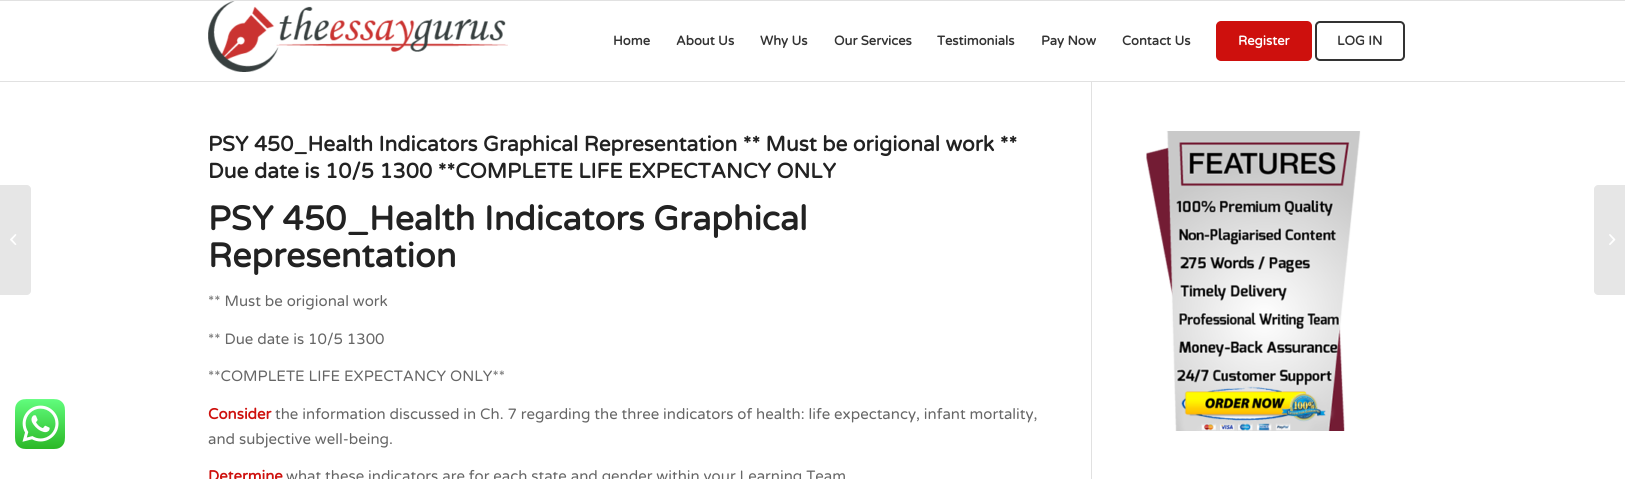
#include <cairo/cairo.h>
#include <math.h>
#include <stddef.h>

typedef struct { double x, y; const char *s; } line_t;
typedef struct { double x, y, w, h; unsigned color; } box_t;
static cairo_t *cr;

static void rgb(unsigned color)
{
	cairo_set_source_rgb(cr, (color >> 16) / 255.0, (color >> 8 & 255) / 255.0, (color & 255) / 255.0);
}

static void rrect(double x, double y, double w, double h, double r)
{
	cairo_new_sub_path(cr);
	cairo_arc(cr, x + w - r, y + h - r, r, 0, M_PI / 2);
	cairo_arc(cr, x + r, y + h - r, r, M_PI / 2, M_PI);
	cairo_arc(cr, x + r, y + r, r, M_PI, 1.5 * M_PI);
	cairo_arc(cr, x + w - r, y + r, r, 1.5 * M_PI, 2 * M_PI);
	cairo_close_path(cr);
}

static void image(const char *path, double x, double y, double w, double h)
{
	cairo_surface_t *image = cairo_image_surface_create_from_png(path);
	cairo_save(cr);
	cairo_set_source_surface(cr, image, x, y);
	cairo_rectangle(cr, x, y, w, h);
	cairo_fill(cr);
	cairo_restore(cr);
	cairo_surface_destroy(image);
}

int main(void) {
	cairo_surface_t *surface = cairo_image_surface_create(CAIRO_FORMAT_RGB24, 1625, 479);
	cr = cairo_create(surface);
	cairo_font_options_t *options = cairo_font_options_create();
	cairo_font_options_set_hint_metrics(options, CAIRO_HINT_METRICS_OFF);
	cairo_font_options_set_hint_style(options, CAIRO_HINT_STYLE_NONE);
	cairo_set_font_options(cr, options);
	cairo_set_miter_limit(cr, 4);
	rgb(0xffffff);
	cairo_paint(cr);
	image("img/1.png", 15, 399, 50, 50);
	{
		static const box_t items[] = {
			{0, 0, 1625, 1, 0xe1e1e1},
			{1091, 81, 1, 398, 0xe1e1e1},
			{0, 81, 1625, 1, 0xe1e1e1},
		};
		for (size_t i = 0; i < sizeof items / sizeof *items; i++) {
			rgb(items[i].color);
			cairo_rectangle(cr, items[i].x, items[i].y, items[i].w, items[i].h);
			cairo_fill(cr);
		}
	}
	image("img/2.png", 208, 1, 300, 71);
	rgb(0xce100d);
	rrect(1217, 22, 94, 38, 4);
	cairo_fill_preserve(cr);
	cairo_stroke(cr);
	rrect(1316, 22, 88, 38, 4);
	rgb(0x333333);
	cairo_stroke(cr);
	rgb(0xe6e6e6);
	cairo_new_path(cr);
	cairo_move_to(cr, 0, 185);
	cairo_line_to(cr, 27, 185);
	cairo_curve_to(cr, 29, 185, 31, 187, 31, 189);
	cairo_line_to(cr, 31, 291);
	cairo_curve_to(cr, 31, 293, 29, 295, 27, 295);
	cairo_line_to(cr, 0, 295);
	cairo_close_path(cr);
	cairo_fill(cr);
	image("img/3.png", 10, 234, 7, 11);
	image("img/4.png", 1146, 131, 215, 300);
	cairo_new_path(cr);
	cairo_move_to(cr, 1598, 185);
	cairo_line_to(cr, 1625, 185);
	cairo_line_to(cr, 1625, 295);
	cairo_line_to(cr, 1598, 295);
	cairo_curve_to(cr, 1596, 295, 1594, 293, 1594, 291);
	cairo_line_to(cr, 1594, 189);
	cairo_curve_to(cr, 1594, 187, 1596, 185, 1598, 185);
	cairo_close_path(cr);
	cairo_fill(cr);
	image("img/5.png", 1609, 234, 7, 11);
	cairo_select_font_face(cr, "Varela Round", CAIRO_FONT_SLANT_NORMAL, CAIRO_FONT_WEIGHT_BOLD);
	cairo_set_font_size(cr, 13);
	rgb(0x333333);
	{
		static const line_t items[] = {
			{613, 45, "Home"},
			{676, 45, "About Us"},
			{760, 45, "Why Us"},
			{834, 45, "Our Services"},
			{937, 45, "Testimonials"},
			{1041, 45, "Pay Now"},
			{1122, 45, "Contact Us"},
		};
		for (size_t i = 0; i < sizeof items / sizeof *items; i++) {
			cairo_move_to(cr, items[i].x, items[i].y);
			cairo_show_text(cr, items[i].s);
		}
	}
	rgb(0xffffff);
	cairo_move_to(cr, 1238, 45);
	cairo_show_text(cr, "Register");
	rgb(0x333333);
	cairo_move_to(cr, 1337, 45);
	cairo_show_text(cr, "LOG IN");
	cairo_set_font_size(cr, 21);
	rgb(0x222222);
	cairo_move_to(cr, 208, 151);
	cairo_show_text(cr, "PSY 450_Health Indicators Graphical Representation ** Must be origional work **");
	cairo_move_to(cr, 208, 178);
	cairo_show_text(cr, "Due date is 10/5 1300 **COMPLETE LIFE EXPECTANCY ONLY");
	cairo_set_font_size(cr, 34);
	cairo_move_to(cr, 208, 230);
	cairo_show_text(cr, "PSY 450_Health Indicators Graphical");
	cairo_move_to(cr, 208, 267);
	cairo_show_text(cr, "Representation");
	cairo_select_font_face(cr, "Varela Round", CAIRO_FONT_SLANT_NORMAL, CAIRO_FONT_WEIGHT_NORMAL);
	cairo_set_font_size(cr, 15);
	rgb(0x666666);
	{
		static const line_t items[] = {
			{208, 306, "** Must be origional work"},
			{208, 344, "** Due date is 10/5 1300"},
			{208, 381, "**COMPLETE LIFE EXPECTANCY ONLY**"},
		};
		for (size_t i = 0; i < sizeof items / sizeof *items; i++) {
			cairo_move_to(cr, items[i].x, items[i].y);
			cairo_show_text(cr, items[i].s);
		}
	}
	cairo_select_font_face(cr, "Varela Round", CAIRO_FONT_SLANT_NORMAL, CAIRO_FONT_WEIGHT_BOLD);
	rgb(0xce100d);
	cairo_move_to(cr, 208, 419);
	cairo_show_text(cr, "Consider");
	cairo_select_font_face(cr, "Varela Round", CAIRO_FONT_SLANT_NORMAL, CAIRO_FONT_WEIGHT_NORMAL);
	rgb(0x666666);
	cairo_move_to(cr, 275, 419);
	cairo_show_text(cr, "the information discussed in Ch. 7 regarding the three indicators of health: life expectancy, infant mortality,");
	cairo_move_to(cr, 208, 444);
	cairo_show_text(cr, "and subjective well-being.");
	cairo_select_font_face(cr, "Varela Round", CAIRO_FONT_SLANT_NORMAL, CAIRO_FONT_WEIGHT_BOLD);
	rgb(0xce100d);
	cairo_move_to(cr, 208, 481);
	cairo_show_text(cr, "Determine");
	cairo_select_font_face(cr, "Varela Round", CAIRO_FONT_SLANT_NORMAL, CAIRO_FONT_WEIGHT_NORMAL);
	rgb(0x666666);
	cairo_move_to(cr, 286, 481);
	cairo_show_text(cr, "what these indicators are for each state and gender within your Learning Team");
	cairo_surface_write_to_png(surface, "page.png");
	cairo_font_options_destroy(options);
	cairo_destroy(cr);
	cairo_surface_destroy(surface);
	return 0;
}
